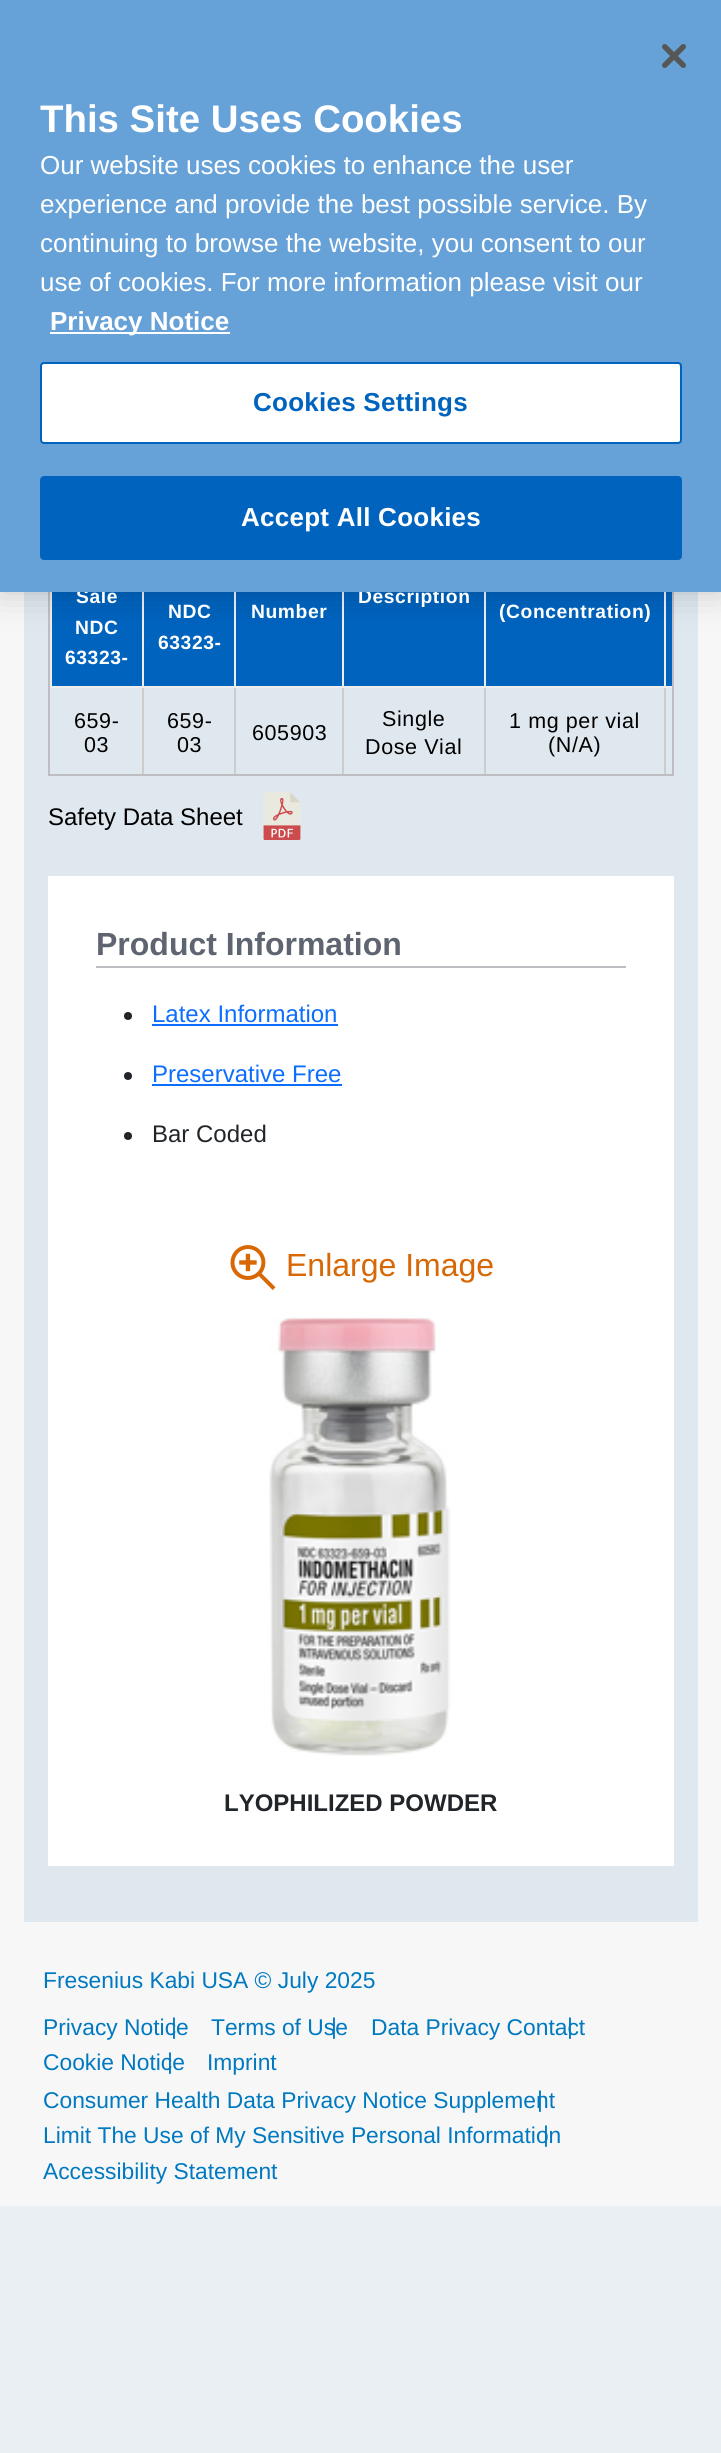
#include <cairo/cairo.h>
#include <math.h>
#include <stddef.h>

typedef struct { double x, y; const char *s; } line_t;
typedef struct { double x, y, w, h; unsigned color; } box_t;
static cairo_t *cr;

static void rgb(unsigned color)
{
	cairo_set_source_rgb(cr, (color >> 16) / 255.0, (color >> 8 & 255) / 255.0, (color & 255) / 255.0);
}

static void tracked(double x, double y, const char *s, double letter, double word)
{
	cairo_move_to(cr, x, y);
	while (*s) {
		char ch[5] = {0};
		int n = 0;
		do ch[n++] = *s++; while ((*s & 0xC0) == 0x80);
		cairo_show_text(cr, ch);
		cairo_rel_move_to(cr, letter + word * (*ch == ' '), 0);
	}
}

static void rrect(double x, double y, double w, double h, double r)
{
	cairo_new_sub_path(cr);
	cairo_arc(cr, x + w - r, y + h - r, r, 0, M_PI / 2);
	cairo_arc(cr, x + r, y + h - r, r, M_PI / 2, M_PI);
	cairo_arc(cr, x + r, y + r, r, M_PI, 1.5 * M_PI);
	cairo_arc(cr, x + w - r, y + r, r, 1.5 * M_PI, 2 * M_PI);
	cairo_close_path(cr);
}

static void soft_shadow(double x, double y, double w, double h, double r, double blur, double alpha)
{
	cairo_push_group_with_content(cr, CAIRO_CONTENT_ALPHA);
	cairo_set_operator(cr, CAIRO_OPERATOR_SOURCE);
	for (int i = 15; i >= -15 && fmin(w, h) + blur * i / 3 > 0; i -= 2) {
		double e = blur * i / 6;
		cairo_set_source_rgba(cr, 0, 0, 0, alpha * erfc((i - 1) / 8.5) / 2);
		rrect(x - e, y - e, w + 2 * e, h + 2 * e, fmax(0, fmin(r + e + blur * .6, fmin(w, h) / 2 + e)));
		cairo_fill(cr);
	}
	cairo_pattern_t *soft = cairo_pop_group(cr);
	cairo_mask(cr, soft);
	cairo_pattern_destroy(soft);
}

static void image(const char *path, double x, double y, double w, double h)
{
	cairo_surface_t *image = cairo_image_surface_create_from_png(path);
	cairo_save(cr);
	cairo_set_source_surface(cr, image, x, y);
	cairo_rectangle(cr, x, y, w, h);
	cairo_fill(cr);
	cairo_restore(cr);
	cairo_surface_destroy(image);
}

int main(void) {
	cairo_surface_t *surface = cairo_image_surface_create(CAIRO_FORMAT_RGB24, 721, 2453);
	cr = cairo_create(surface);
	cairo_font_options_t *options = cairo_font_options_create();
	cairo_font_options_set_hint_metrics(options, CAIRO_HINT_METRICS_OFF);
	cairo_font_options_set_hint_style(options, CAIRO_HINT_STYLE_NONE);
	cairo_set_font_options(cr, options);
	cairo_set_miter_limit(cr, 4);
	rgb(0xeaeff3);
	cairo_paint(cr);
	rgb(0xf7f7f7);
	cairo_rectangle(cr, 0, 592, 721, 1614);
	cairo_fill(cr);
	rgb(0xdfe8ef);
	cairo_rectangle(cr, 24, 592, 674, 1330);
	cairo_fill(cr);
	cairo_rectangle(cr, 49, 505, 624, 270);
	rgb(0xbebec2);
	cairo_stroke(cr);
	{
		static const box_t items[] = {
			{52, 592, 620, 94, 0x0063be},
			{664, 686, 2, 88, 0xcccccc},
			{664, 686, 8, 2, 0xeeeeee},
			{664, 592, 2, 96, 0xeeeeee},
			{484, 686, 2, 88, 0xcccccc},
			{484, 686, 182, 2, 0xeeeeee},
			{484, 592, 2, 96, 0xeeeeee},
			{342, 686, 2, 88, 0xcccccc},
			{342, 686, 144, 2, 0xeeeeee},
			{342, 592, 2, 96, 0xeeeeee},
			{234, 686, 2, 88, 0xcccccc},
			{234, 686, 110, 2, 0xeeeeee},
			{234, 592, 2, 96, 0xeeeeee},
			{142, 686, 2, 88, 0xcccccc},
			{142, 686, 94, 2, 0xeeeeee},
			{142, 592, 2, 96, 0xeeeeee},
			{50, 686, 94, 2, 0xeeeeee},
			{50, 592, 2, 96, 0xeeeeee},
		};
		for (size_t i = 0; i < sizeof items / sizeof *items; i++) {
			rgb(items[i].color);
			cairo_rectangle(cr, items[i].x, items[i].y, items[i].w, items[i].h);
			cairo_fill(cr);
		}
	}
	rgb(0x000000);
	soft_shadow(0, 0, 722, 592, 0, 18, 0.2);
	image("img/2.png", 263, 792, 38, 48);
	rgb(0xffffff);
	cairo_rectangle(cr, 48, 876, 626, 990);
	cairo_fill(cr);
	rgb(0xbebec2);
	cairo_rectangle(cr, 96, 966, 530, 2);
	cairo_fill(cr);
	rgb(0x212529);
	cairo_arc(cr, 128, 1016, 4, 0, 2 * M_PI);
	cairo_fill(cr);
	rgb(0x0d6efd);
	cairo_rectangle(cr, 152, 1024, 186, 2);
	cairo_fill(cr);
	rgb(0x212529);
	cairo_arc(cr, 128, 1076, 4, 0, 2 * M_PI);
	cairo_fill(cr);
	rgb(0x0d6efd);
	cairo_rectangle(cr, 152, 1084, 190, 2);
	cairo_fill(cr);
	rgb(0x212529);
	cairo_arc(cr, 128, 1136, 4, 0, 2 * M_PI);
	cairo_fill(cr);
	image("img/3.png", 230, 1245, 46, 45);
	image("img/4.png", 269, 1317, 182, 439);
	cairo_select_font_face(cr, "Liberation Sans", CAIRO_FONT_SLANT_NORMAL, CAIRO_FONT_WEIGHT_BOLD);
	cairo_set_font_size(cr, 19.25);
	rgb(0xffffff);
	{
		static const line_t items[] = {
			{76, 603, "Sale"},
			{75, 634, "NDC"},
			{65, 664, "63323-"},
			{168, 618, "NDC"},
			{158, 649, "63323-"},
			{251, 618, "Number"},
			{358, 603, "Description"},
		};
		for (size_t i = 0; i < sizeof items / sizeof *items; i++) {
			tracked(items[i].x, items[i].y, items[i].s, 0.6, 0);
		}
	}
	rgb(0x66a1d8);
	cairo_rectangle(cr, 0, 0, 721, 592);
	cairo_fill(cr);
	image("img/1.png", 662, 44, 24, 24);
	cairo_set_font_size(cr, 38.4);
	rgb(0xffffff);
	cairo_move_to(cr, 40, 132);
	cairo_show_text(cr, "This Site Uses Cookies");
	cairo_rectangle(cr, 50, 332, 180, 2);
	cairo_fill(cr);
	cairo_set_font_size(cr, 26);
	cairo_move_to(cr, 50, 330);
	cairo_show_text(cr, "Privacy Notice");
	cairo_select_font_face(cr, "Liberation Sans", CAIRO_FONT_SLANT_NORMAL, CAIRO_FONT_WEIGHT_NORMAL);
	{
		static const line_t items[] = {
			{40, 291, "use of cookies. For more information please visit our"},
			{40, 252, "continuing to browse the website, you consent to our"},
			{40, 213, "experience and provide the best possible service. By"},
			{40, 174, "Our website uses cookies to enhance the user"},
		};
		for (size_t i = 0; i < sizeof items / sizeof *items; i++) {
			cairo_move_to(cr, items[i].x, items[i].y);
			cairo_show_text(cr, items[i].s);
		}
	}
	rgb(0x0063be);
	rrect(41, 477, 640, 82, 3);
	cairo_fill_preserve(cr);
	cairo_stroke(cr);
	cairo_select_font_face(cr, "Liberation Sans", CAIRO_FONT_SLANT_NORMAL, CAIRO_FONT_WEIGHT_BOLD);
	rgb(0xffffff);
	tracked(241, 526, "Accept All Cookies", 0.25, 0);
	rrect(41, 363, 640, 80, 3);
	cairo_fill_preserve(cr);
	rgb(0x0063be);
	cairo_stroke(cr);
	tracked(253, 411, "Cookies Settings", 0.25, 0);
	cairo_set_font_size(cr, 19.25);
	rgb(0xffffff);
	tracked(499, 618, "(Concentration)", 0.6, 0);
	cairo_select_font_face(cr, "Liberation Sans", CAIRO_FONT_SLANT_NORMAL, CAIRO_FONT_WEIGHT_NORMAL);
	cairo_set_font_size(cr, 21.5);
	rgb(0x000000);
	{
		static const line_t items[] = {
			{74, 728, "659-"},
			{84, 752, "03"},
			{167, 728, "659-"},
			{177, 752, "03"},
			{252, 740, "605903"},
			{382, 726, "Single"},
			{365, 754, "Dose Vial"},
			{509, 728, "1 mg per vial"},
			{548, 752, "(N/A)"},
		};
		for (size_t i = 0; i < sizeof items / sizeof *items; i++) {
			tracked(items[i].x, items[i].y, items[i].s, 0.6, 0);
		}
	}
	cairo_set_font_size(cr, 24);
	cairo_move_to(cr, 48, 825);
	cairo_show_text(cr, "Safety Data Sheet");
	cairo_select_font_face(cr, "Liberation Sans", CAIRO_FONT_SLANT_NORMAL, CAIRO_FONT_WEIGHT_BOLD);
	cairo_set_font_size(cr, 32);
	rgb(0x5e6570);
	cairo_move_to(cr, 96, 955);
	cairo_show_text(cr, "Product Information");
	cairo_select_font_face(cr, "Liberation Sans", CAIRO_FONT_SLANT_NORMAL, CAIRO_FONT_WEIGHT_NORMAL);
	cairo_set_font_size(cr, 24);
	rgb(0x0d6efd);
	cairo_move_to(cr, 152, 1022);
	cairo_show_text(cr, "Latex Information");
	cairo_move_to(cr, 152, 1082);
	cairo_show_text(cr, "Preservative Free");
	rgb(0x212529);
	cairo_move_to(cr, 152, 1142);
	cairo_show_text(cr, "Bar Coded");
	cairo_set_font_size(cr, 32);
	rgb(0xd86805);
	cairo_move_to(cr, 286, 1276);
	cairo_show_text(cr, "Enlarge Image");
	cairo_select_font_face(cr, "Liberation Sans", CAIRO_FONT_SLANT_NORMAL, CAIRO_FONT_WEIGHT_BOLD);
	cairo_set_font_size(cr, 24);
	rgb(0x212529);
	cairo_move_to(cr, 224, 1811);
	cairo_show_text(cr, "LYOPHILIZED POWDER");
	cairo_select_font_face(cr, "Liberation Sans", CAIRO_FONT_SLANT_NORMAL, CAIRO_FONT_WEIGHT_NORMAL);
	cairo_set_font_size(cr, 22.8);
	rgb(0x0079c1);
	{
		static const line_t items[] = {
			{43, 1988, "Fresenius Kabi USA © July 2025"},
			{43, 2035, "Privacy Notice"},
			{171, 2034, "|"},
			{211, 2035, "Terms of Use"},
			{331, 2034, "|"},
			{371, 2035, "Data Privacy Contact"},
			{567, 2034, "|"},
			{43, 2070, "Cookie Notice"},
			{167, 2069, "|"},
			{207, 2070, "Imprint"},
			{43, 2108, "Consumer Health Data Privacy Notice Supplement"},
			{537, 2107, "|"},
			{43, 2143, "Limit The Use of My Sensitive Personal Information"},
			{543, 2142, "|"},
			{43, 2179, "Accessibility Statement"},
		};
		for (size_t i = 0; i < sizeof items / sizeof *items; i++) {
			cairo_move_to(cr, items[i].x, items[i].y);
			cairo_show_text(cr, items[i].s);
		}
	}
	cairo_surface_write_to_png(surface, "page.png");
	cairo_font_options_destroy(options);
	cairo_destroy(cr);
	cairo_surface_destroy(surface);
	return 0;
}
